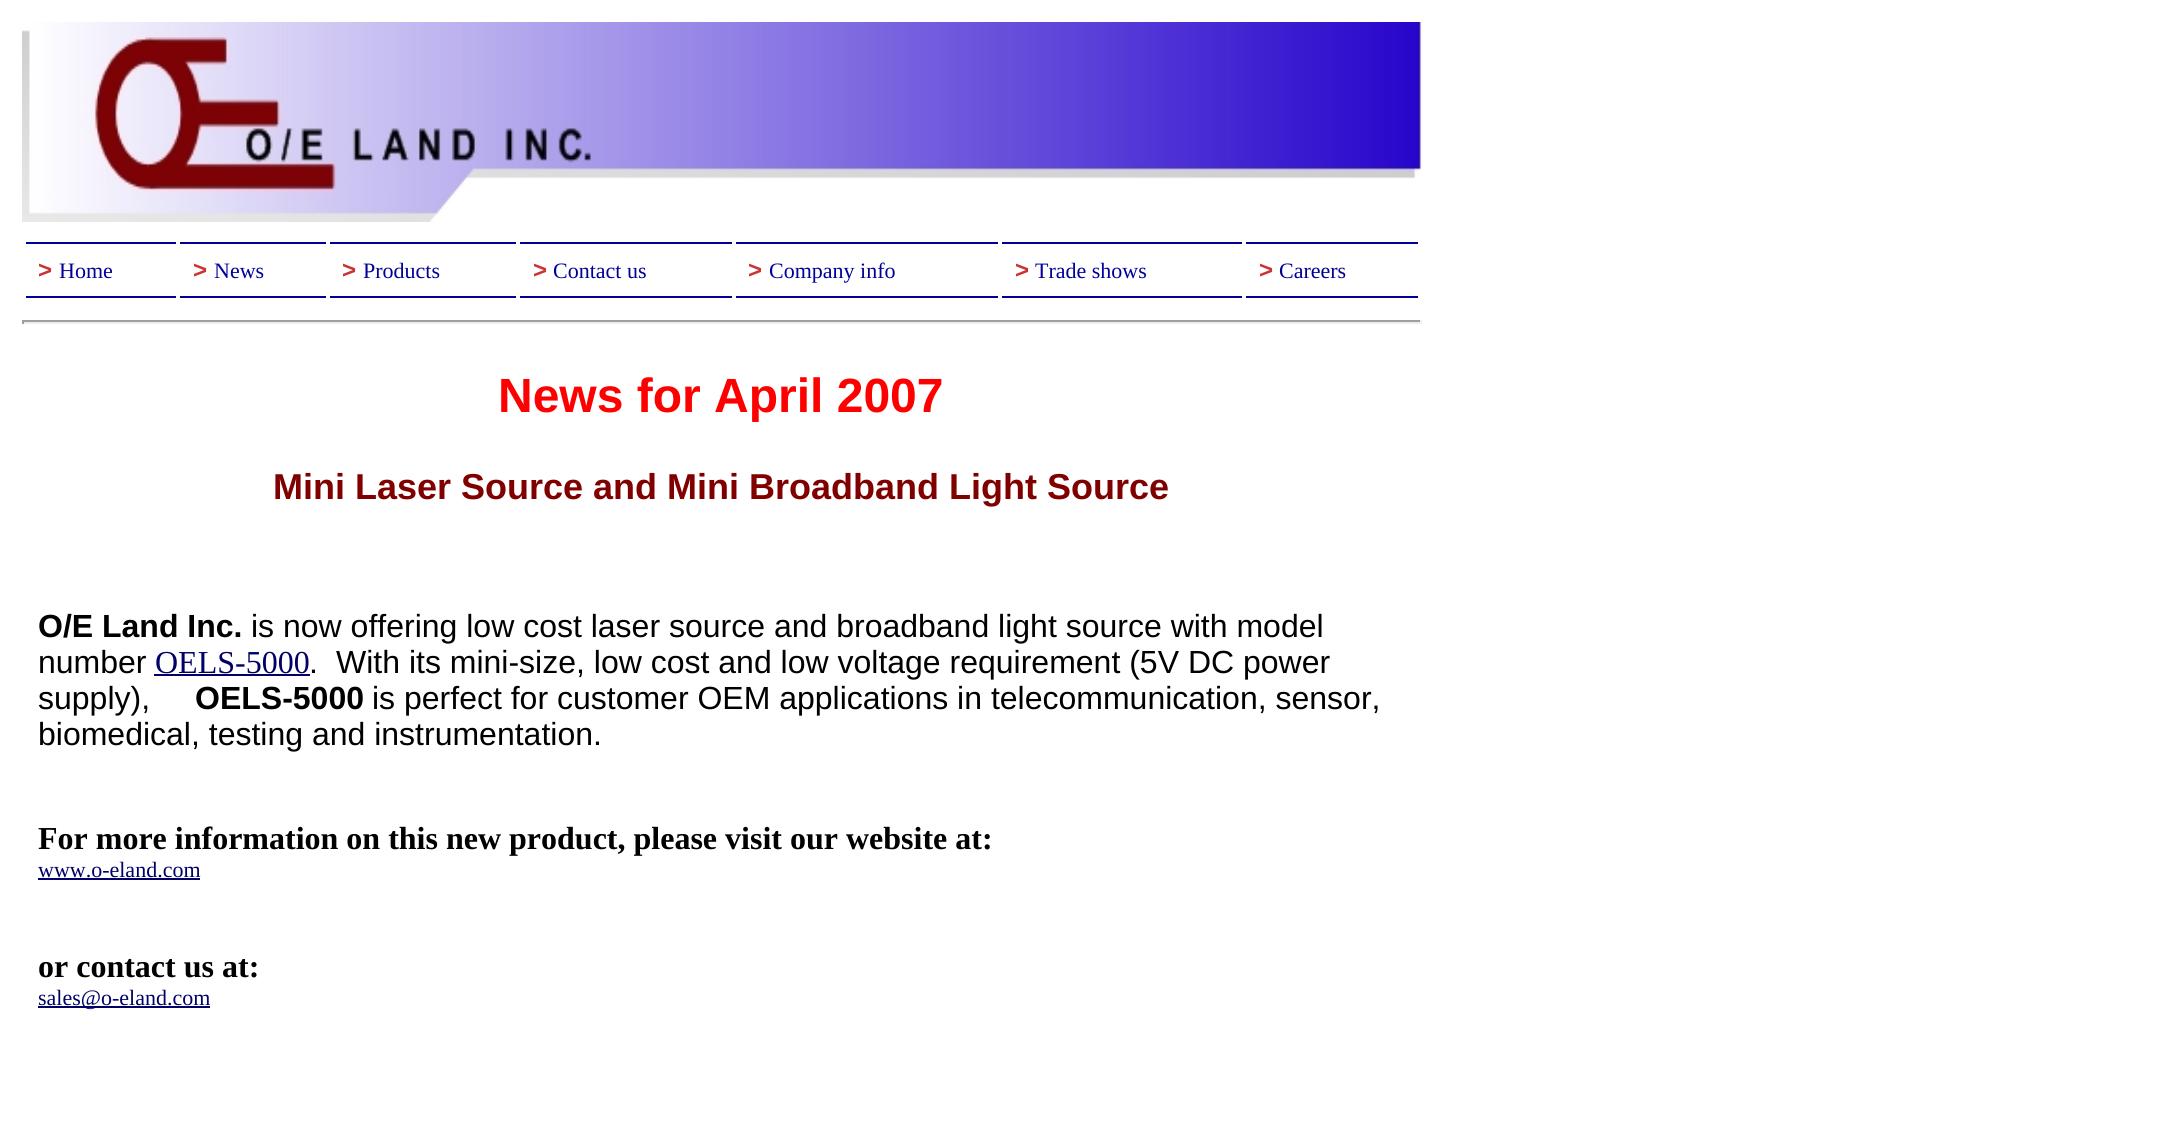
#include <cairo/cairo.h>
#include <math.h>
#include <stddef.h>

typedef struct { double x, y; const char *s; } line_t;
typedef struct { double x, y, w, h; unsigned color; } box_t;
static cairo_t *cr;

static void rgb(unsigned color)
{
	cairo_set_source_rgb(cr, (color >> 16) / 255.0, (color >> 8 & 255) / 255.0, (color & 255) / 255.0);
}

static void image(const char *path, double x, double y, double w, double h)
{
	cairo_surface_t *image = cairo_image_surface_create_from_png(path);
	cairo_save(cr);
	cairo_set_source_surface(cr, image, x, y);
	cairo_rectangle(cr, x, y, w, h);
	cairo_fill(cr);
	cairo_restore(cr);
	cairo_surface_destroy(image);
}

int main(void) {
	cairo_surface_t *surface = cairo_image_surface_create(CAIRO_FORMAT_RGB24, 2159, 1148);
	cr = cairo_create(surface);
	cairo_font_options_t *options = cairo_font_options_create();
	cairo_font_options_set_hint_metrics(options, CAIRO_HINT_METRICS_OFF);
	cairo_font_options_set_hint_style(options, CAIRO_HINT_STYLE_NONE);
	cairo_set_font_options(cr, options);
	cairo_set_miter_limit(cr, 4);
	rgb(0xffffff);
	cairo_paint(cr);
	image("img/1.png", 22, 22, 1400, 200);
	{
		static const box_t items[] = {
			{26, 242, 150, 2, 0x000099},
			{26, 296, 150, 2, 0x000099},
			{180, 242, 146, 2, 0x000099},
			{180, 296, 146, 2, 0x000099},
			{330, 242, 186, 2, 0x000099},
			{330, 296, 186, 2, 0x000099},
			{520, 242, 212, 2, 0x000099},
			{520, 296, 212, 2, 0x000099},
			{736, 242, 262, 2, 0x000099},
			{736, 296, 262, 2, 0x000099},
			{1002, 242, 240, 2, 0x000099},
			{1002, 296, 240, 2, 0x000099},
			{1246, 242, 172, 2, 0x000099},
			{1246, 296, 172, 2, 0x000099},
			{22, 320, 1400, 2, 0x9f9f9f},
			{1420, 320, 2, 4, 0xeeeeee},
			{22, 322, 1400, 2, 0xeeeeee},
			{22, 320, 2, 4, 0x9f9f9f},
			{154, 674, 156, 2, 0x000066},
			{38, 878, 162, 2, 0x000066},
			{38, 1006, 172, 2, 0x000066},
		};
		for (size_t i = 0; i < sizeof items / sizeof *items; i++) {
			rgb(items[i].color);
			cairo_rectangle(cr, items[i].x, items[i].y, items[i].w, items[i].h);
			cairo_fill(cr);
		}
	}
	cairo_select_font_face(cr, "Liberation Sans", CAIRO_FONT_SLANT_NORMAL, CAIRO_FONT_WEIGHT_BOLD);
	cairo_set_font_size(cr, 24);
	rgb(0xcc3333);
	cairo_move_to(cr, 38, 278);
	cairo_show_text(cr, ">");
	cairo_select_font_face(cr, "Liberation Serif", CAIRO_FONT_SLANT_NORMAL, CAIRO_FONT_WEIGHT_NORMAL);
	cairo_set_font_size(cr, 22);
	rgb(0x000099);
	cairo_move_to(cr, 59, 278);
	cairo_show_text(cr, "Home");
	cairo_select_font_face(cr, "Liberation Sans", CAIRO_FONT_SLANT_NORMAL, CAIRO_FONT_WEIGHT_BOLD);
	cairo_set_font_size(cr, 24);
	rgb(0xcc3333);
	cairo_move_to(cr, 193, 278);
	cairo_show_text(cr, ">");
	cairo_select_font_face(cr, "Liberation Serif", CAIRO_FONT_SLANT_NORMAL, CAIRO_FONT_WEIGHT_NORMAL);
	cairo_set_font_size(cr, 22);
	rgb(0x000099);
	cairo_move_to(cr, 214, 278);
	cairo_show_text(cr, "News");
	cairo_select_font_face(cr, "Liberation Sans", CAIRO_FONT_SLANT_NORMAL, CAIRO_FONT_WEIGHT_BOLD);
	cairo_set_font_size(cr, 24);
	rgb(0xcc3333);
	cairo_move_to(cr, 342, 278);
	cairo_show_text(cr, ">");
	cairo_select_font_face(cr, "Liberation Serif", CAIRO_FONT_SLANT_NORMAL, CAIRO_FONT_WEIGHT_NORMAL);
	cairo_set_font_size(cr, 22);
	rgb(0x000099);
	cairo_move_to(cr, 363, 278);
	cairo_show_text(cr, "Products");
	cairo_select_font_face(cr, "Liberation Sans", CAIRO_FONT_SLANT_NORMAL, CAIRO_FONT_WEIGHT_BOLD);
	cairo_set_font_size(cr, 24);
	rgb(0xcc3333);
	cairo_move_to(cr, 533, 278);
	cairo_show_text(cr, ">");
	cairo_select_font_face(cr, "Liberation Serif", CAIRO_FONT_SLANT_NORMAL, CAIRO_FONT_WEIGHT_NORMAL);
	cairo_set_font_size(cr, 22);
	rgb(0x000099);
	cairo_move_to(cr, 553, 278);
	cairo_show_text(cr, "Contact us");
	cairo_select_font_face(cr, "Liberation Sans", CAIRO_FONT_SLANT_NORMAL, CAIRO_FONT_WEIGHT_BOLD);
	cairo_set_font_size(cr, 24);
	rgb(0xcc3333);
	cairo_move_to(cr, 748, 278);
	cairo_show_text(cr, ">");
	cairo_select_font_face(cr, "Liberation Serif", CAIRO_FONT_SLANT_NORMAL, CAIRO_FONT_WEIGHT_NORMAL);
	cairo_set_font_size(cr, 22);
	rgb(0x000099);
	cairo_move_to(cr, 769, 278);
	cairo_show_text(cr, "Company info");
	cairo_select_font_face(cr, "Liberation Sans", CAIRO_FONT_SLANT_NORMAL, CAIRO_FONT_WEIGHT_BOLD);
	cairo_set_font_size(cr, 24);
	rgb(0xcc3333);
	cairo_move_to(cr, 1015, 278);
	cairo_show_text(cr, ">");
	cairo_select_font_face(cr, "Liberation Serif", CAIRO_FONT_SLANT_NORMAL, CAIRO_FONT_WEIGHT_NORMAL);
	cairo_set_font_size(cr, 22);
	rgb(0x000099);
	cairo_move_to(cr, 1035, 278);
	cairo_show_text(cr, "Trade shows");
	cairo_select_font_face(cr, "Liberation Sans", CAIRO_FONT_SLANT_NORMAL, CAIRO_FONT_WEIGHT_BOLD);
	cairo_set_font_size(cr, 24);
	rgb(0xcc3333);
	cairo_move_to(cr, 1259, 278);
	cairo_show_text(cr, ">");
	cairo_select_font_face(cr, "Liberation Serif", CAIRO_FONT_SLANT_NORMAL, CAIRO_FONT_WEIGHT_NORMAL);
	cairo_set_font_size(cr, 22);
	rgb(0x000099);
	cairo_move_to(cr, 1279, 278);
	cairo_show_text(cr, "Careers");
	cairo_select_font_face(cr, "Liberation Sans", CAIRO_FONT_SLANT_NORMAL, CAIRO_FONT_WEIGHT_BOLD);
	cairo_set_font_size(cr, 48);
	rgb(0xff0000);
	cairo_move_to(cr, 498, 412);
	cairo_show_text(cr, "News for April 2007");
	cairo_set_font_size(cr, 36);
	rgb(0x800000);
	cairo_move_to(cr, 273, 499);
	cairo_show_text(cr, "Mini Laser Source and Mini Broadband Light Source");
	cairo_set_font_size(cr, 32);
	rgb(0x000000);
	cairo_move_to(cr, 38, 637);
	cairo_show_text(cr, "O/E Land Inc.");
	cairo_select_font_face(cr, "Liberation Sans", CAIRO_FONT_SLANT_NORMAL, CAIRO_FONT_WEIGHT_NORMAL);
	cairo_move_to(cr, 251, 637);
	cairo_show_text(cr, "is now offering low cost laser source and broadband light source with model");
	cairo_move_to(cr, 38, 673);
	cairo_show_text(cr, "number");
	cairo_select_font_face(cr, "Liberation Serif", CAIRO_FONT_SLANT_NORMAL, CAIRO_FONT_WEIGHT_NORMAL);
	rgb(0x000066);
	cairo_move_to(cr, 155, 673);
	cairo_show_text(cr, "OELS-5000");
	cairo_select_font_face(cr, "Liberation Sans", CAIRO_FONT_SLANT_NORMAL, CAIRO_FONT_WEIGHT_NORMAL);
	rgb(0x000000);
	{
		static const line_t items[] = {
			{309, 673, "."},
			{336, 673, "With its mini-size, low cost and low voltage requirement (5V DC power"},
			{38, 709, "supply),"},
		};
		for (size_t i = 0; i < sizeof items / sizeof *items; i++) {
			cairo_move_to(cr, items[i].x, items[i].y);
			cairo_show_text(cr, items[i].s);
		}
	}
	cairo_select_font_face(cr, "Liberation Sans", CAIRO_FONT_SLANT_NORMAL, CAIRO_FONT_WEIGHT_BOLD);
	cairo_move_to(cr, 195, 709);
	cairo_show_text(cr, "OELS-5000");
	cairo_select_font_face(cr, "Liberation Sans", CAIRO_FONT_SLANT_NORMAL, CAIRO_FONT_WEIGHT_NORMAL);
	cairo_move_to(cr, 372, 709);
	cairo_show_text(cr, "is perfect for customer OEM applications in telecommunication, sensor,");
	cairo_move_to(cr, 38, 745);
	cairo_show_text(cr, "biomedical, testing and instrumentation.");
	cairo_select_font_face(cr, "Liberation Serif", CAIRO_FONT_SLANT_NORMAL, CAIRO_FONT_WEIGHT_BOLD);
	cairo_move_to(cr, 38, 849);
	cairo_show_text(cr, "For more information on this new product, please visit our website at:");
	cairo_select_font_face(cr, "Liberation Serif", CAIRO_FONT_SLANT_NORMAL, CAIRO_FONT_WEIGHT_NORMAL);
	cairo_set_font_size(cr, 22);
	rgb(0x000066);
	cairo_move_to(cr, 38, 877);
	cairo_show_text(cr, "www.o-eland.com");
	cairo_select_font_face(cr, "Liberation Serif", CAIRO_FONT_SLANT_NORMAL, CAIRO_FONT_WEIGHT_BOLD);
	cairo_set_font_size(cr, 32);
	rgb(0x000000);
	cairo_move_to(cr, 38, 977);
	cairo_show_text(cr, "or contact us at:");
	cairo_select_font_face(cr, "Liberation Serif", CAIRO_FONT_SLANT_NORMAL, CAIRO_FONT_WEIGHT_NORMAL);
	cairo_set_font_size(cr, 22);
	rgb(0x000066);
	cairo_move_to(cr, 38, 1005);
	cairo_show_text(cr, "sales@o-eland.com");
	cairo_surface_write_to_png(surface, "page.png");
	cairo_font_options_destroy(options);
	cairo_destroy(cr);
	cairo_surface_destroy(surface);
	return 0;
}
